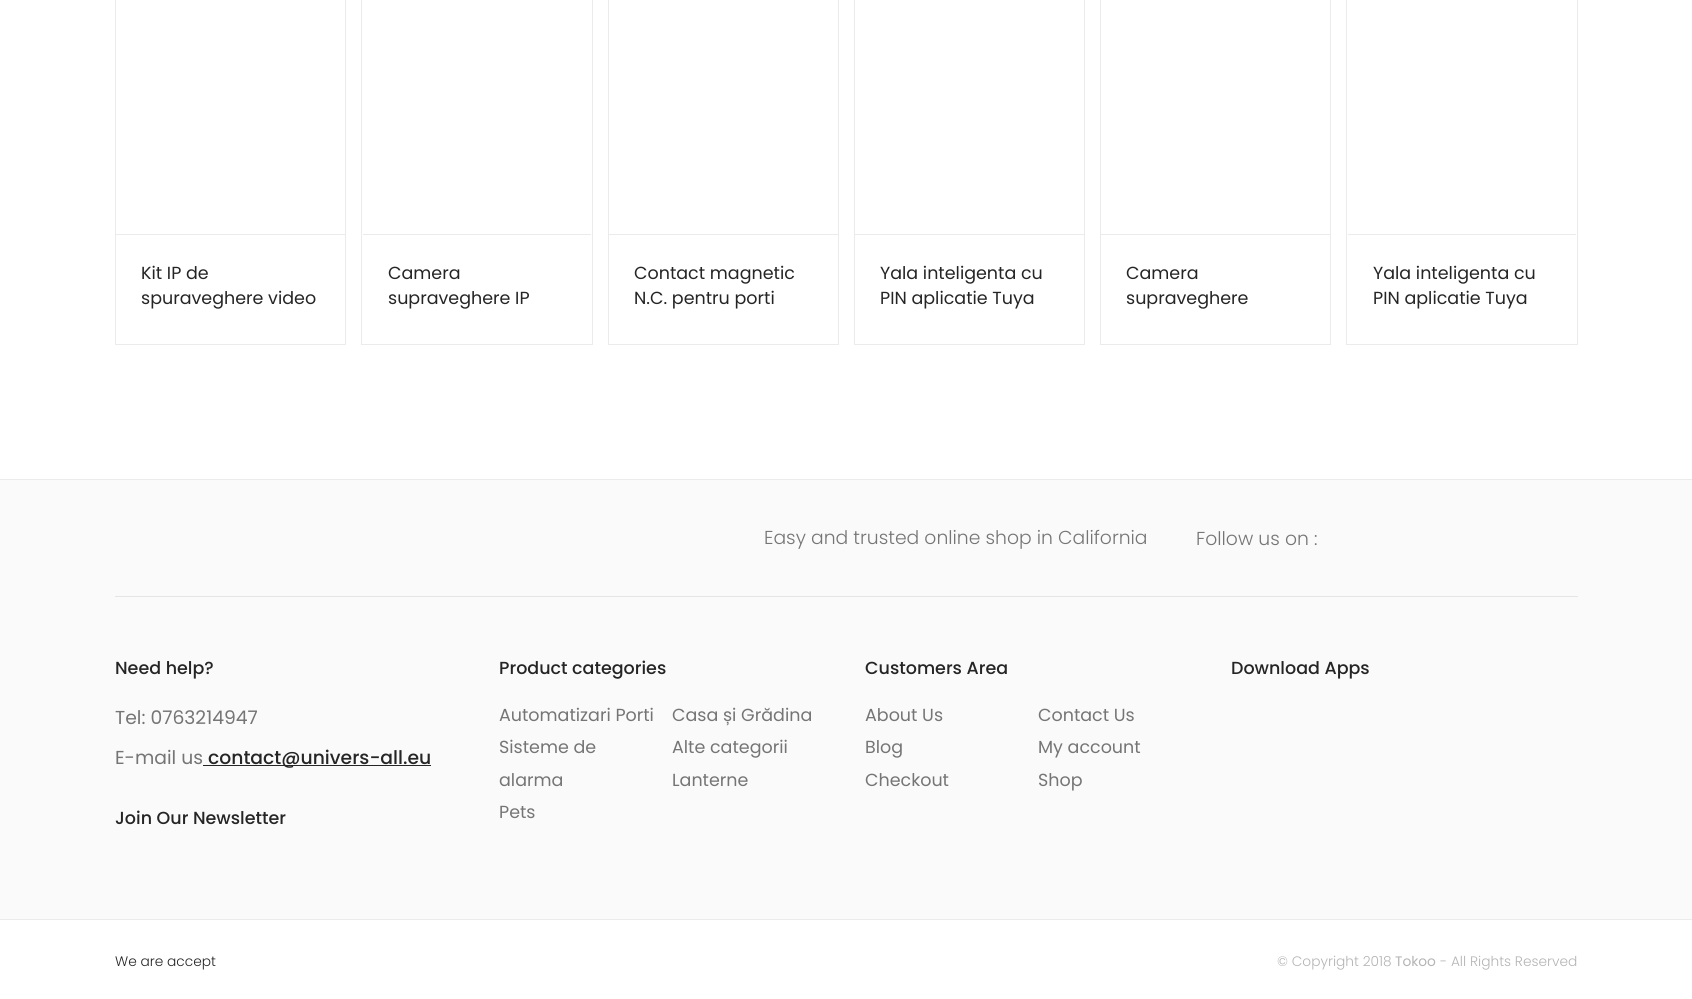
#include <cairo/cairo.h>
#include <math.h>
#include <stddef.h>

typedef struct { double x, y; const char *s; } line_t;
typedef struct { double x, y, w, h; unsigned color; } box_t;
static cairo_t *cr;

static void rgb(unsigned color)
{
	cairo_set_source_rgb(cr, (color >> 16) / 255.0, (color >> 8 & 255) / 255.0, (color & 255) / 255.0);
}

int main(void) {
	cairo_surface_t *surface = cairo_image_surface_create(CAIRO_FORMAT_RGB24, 1692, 999);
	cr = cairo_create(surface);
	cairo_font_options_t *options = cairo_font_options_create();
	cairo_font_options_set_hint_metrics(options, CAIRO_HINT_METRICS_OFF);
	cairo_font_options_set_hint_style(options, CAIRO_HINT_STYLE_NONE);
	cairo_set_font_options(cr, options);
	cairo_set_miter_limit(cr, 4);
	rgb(0xffffff);
	cairo_paint(cr);
	cairo_rectangle(cr, 115.5, -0.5, 230, 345);
	rgb(0xebebeb);
	cairo_set_line_width(cr, 1);
	cairo_stroke(cr);
	cairo_rectangle(cr, 116, 234, 229, 1);
	cairo_fill(cr);
	cairo_rectangle(cr, 361.5, -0.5, 231, 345);
	cairo_stroke(cr);
	cairo_rectangle(cr, 363, 234, 228, 1);
	cairo_fill(cr);
	cairo_rectangle(cr, 608.5, -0.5, 230, 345);
	cairo_stroke(cr);
	cairo_rectangle(cr, 609, 234, 229, 1);
	cairo_fill(cr);
	cairo_rectangle(cr, 854.5, -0.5, 230, 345);
	cairo_stroke(cr);
	cairo_rectangle(cr, 855, 234, 229, 1);
	cairo_fill(cr);
	cairo_rectangle(cr, 1100.5, -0.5, 230, 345);
	cairo_stroke(cr);
	cairo_rectangle(cr, 1101, 234, 229, 1);
	cairo_fill(cr);
	cairo_rectangle(cr, 1346.5, -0.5, 231, 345);
	cairo_stroke(cr);
	{
		static const box_t items[] = {
			{1348, 234, 228, 1, 0xebebeb},
			{0, 480, 1692, 439, 0xfafafa},
			{0, 479, 1692, 1, 0xebebeb},
			{115, 596, 1463, 1, 0xe5e5e5},
			{203, 765, 228, 1, 0x252525},
			{0, 919, 1692, 1, 0xebebeb},
		};
		for (size_t i = 0; i < sizeof items / sizeof *items; i++) {
			rgb(items[i].color);
			cairo_rectangle(cr, items[i].x, items[i].y, items[i].w, items[i].h);
			cairo_fill(cr);
		}
	}
	cairo_select_font_face(cr, "Poppins", CAIRO_FONT_SLANT_NORMAL, CAIRO_FONT_WEIGHT_NORMAL);
	cairo_set_font_size(cr, 17.5);
	rgb(0x252525);
	{
		static const line_t items[] = {
			{141, 279, "Kit IP de"},
			{141, 304, "spuraveghere video"},
			{388, 279, "Camera"},
			{388, 304, "supraveghere IP"},
			{634, 279, "Contact magnetic"},
			{634, 304, "N.C. pentru porti"},
			{880, 279, "Yala inteligenta cu"},
			{880, 304, "PIN aplicatie Tuya"},
			{1126, 279, "Camera"},
			{1126, 304, "supraveghere"},
			{1373, 279, "Yala inteligenta cu"},
			{1373, 304, "PIN aplicatie Tuya"},
		};
		for (size_t i = 0; i < sizeof items / sizeof *items; i++) {
			cairo_move_to(cr, items[i].x, items[i].y);
			cairo_show_text(cr, items[i].s);
		}
	}
	cairo_select_font_face(cr, "Poppins Light", CAIRO_FONT_SLANT_NORMAL, CAIRO_FONT_WEIGHT_NORMAL);
	cairo_set_font_size(cr, 18.75);
	rgb(0x757575);
	cairo_move_to(cr, 764, 544);
	cairo_show_text(cr, "Easy and trusted online shop in California");
	cairo_move_to(cr, 1196, 545);
	cairo_show_text(cr, "Follow us on :");
	cairo_select_font_face(cr, "Poppins Medium", CAIRO_FONT_SLANT_NORMAL, CAIRO_FONT_WEIGHT_NORMAL);
	cairo_set_font_size(cr, 17.5);
	rgb(0x252525);
	cairo_move_to(cr, 115, 674);
	cairo_show_text(cr, "Need help?");
	cairo_select_font_face(cr, "Poppins", CAIRO_FONT_SLANT_NORMAL, CAIRO_FONT_WEIGHT_NORMAL);
	cairo_set_font_size(cr, 18.75);
	rgb(0x757575);
	cairo_move_to(cr, 115, 724);
	cairo_show_text(cr, "Tel: 0763214947");
	cairo_move_to(cr, 115, 764);
	cairo_show_text(cr, "E-mail us");
	cairo_select_font_face(cr, "Poppins Medium", CAIRO_FONT_SLANT_NORMAL, CAIRO_FONT_WEIGHT_NORMAL);
	rgb(0x252525);
	cairo_move_to(cr, 208, 764);
	cairo_show_text(cr, "contact@univers-all.eu");
	cairo_set_font_size(cr, 17.5);
	cairo_move_to(cr, 115, 824);
	cairo_show_text(cr, "Join Our Newsletter");
	cairo_move_to(cr, 499, 674);
	cairo_show_text(cr, "Product categories");
	cairo_select_font_face(cr, "Poppins", CAIRO_FONT_SLANT_NORMAL, CAIRO_FONT_WEIGHT_NORMAL);
	rgb(0x757575);
	{
		static const line_t items[] = {
			{499, 721, "Automatizari Porti"},
			{672, 721, "Casa și Grădina"},
			{499, 753, "Sisteme de"},
			{499, 786, "alarma"},
			{672, 753, "Alte categorii"},
			{672, 786, "Lanterne"},
			{499, 818, "Pets"},
		};
		for (size_t i = 0; i < sizeof items / sizeof *items; i++) {
			cairo_move_to(cr, items[i].x, items[i].y);
			cairo_show_text(cr, items[i].s);
		}
	}
	cairo_select_font_face(cr, "Poppins Medium", CAIRO_FONT_SLANT_NORMAL, CAIRO_FONT_WEIGHT_NORMAL);
	rgb(0x252525);
	cairo_move_to(cr, 865, 674);
	cairo_show_text(cr, "Customers Area");
	cairo_select_font_face(cr, "Poppins", CAIRO_FONT_SLANT_NORMAL, CAIRO_FONT_WEIGHT_NORMAL);
	rgb(0x757575);
	{
		static const line_t items[] = {
			{865, 721, "About Us"},
			{1038, 721, "Contact Us"},
			{865, 753, "Blog"},
			{1038, 753, "My account"},
			{865, 786, "Checkout"},
			{1038, 786, "Shop"},
		};
		for (size_t i = 0; i < sizeof items / sizeof *items; i++) {
			cairo_move_to(cr, items[i].x, items[i].y);
			cairo_show_text(cr, items[i].s);
		}
	}
	cairo_select_font_face(cr, "Poppins Medium", CAIRO_FONT_SLANT_NORMAL, CAIRO_FONT_WEIGHT_NORMAL);
	rgb(0x252525);
	cairo_move_to(cr, 1231, 674);
	cairo_show_text(cr, "Download Apps");
	cairo_select_font_face(cr, "Poppins Light", CAIRO_FONT_SLANT_NORMAL, CAIRO_FONT_WEIGHT_NORMAL);
	cairo_set_font_size(cr, 13.75);
	cairo_move_to(cr, 115, 966);
	cairo_show_text(cr, "We are accept");
	rgb(0xb4b4b4);
	cairo_move_to(cr, 1277, 966);
	cairo_show_text(cr, "© Copyright 2018");
	cairo_select_font_face(cr, "Poppins", CAIRO_FONT_SLANT_NORMAL, CAIRO_FONT_WEIGHT_NORMAL);
	cairo_move_to(cr, 1395, 966);
	cairo_show_text(cr, "Tokoo");
	cairo_select_font_face(cr, "Poppins Light", CAIRO_FONT_SLANT_NORMAL, CAIRO_FONT_WEIGHT_NORMAL);
	cairo_move_to(cr, 1440, 966);
	cairo_show_text(cr, "- All Rights Reserved");
	cairo_surface_write_to_png(surface, "page.png");
	cairo_font_options_destroy(options);
	cairo_destroy(cr);
	cairo_surface_destroy(surface);
	return 0;
}
